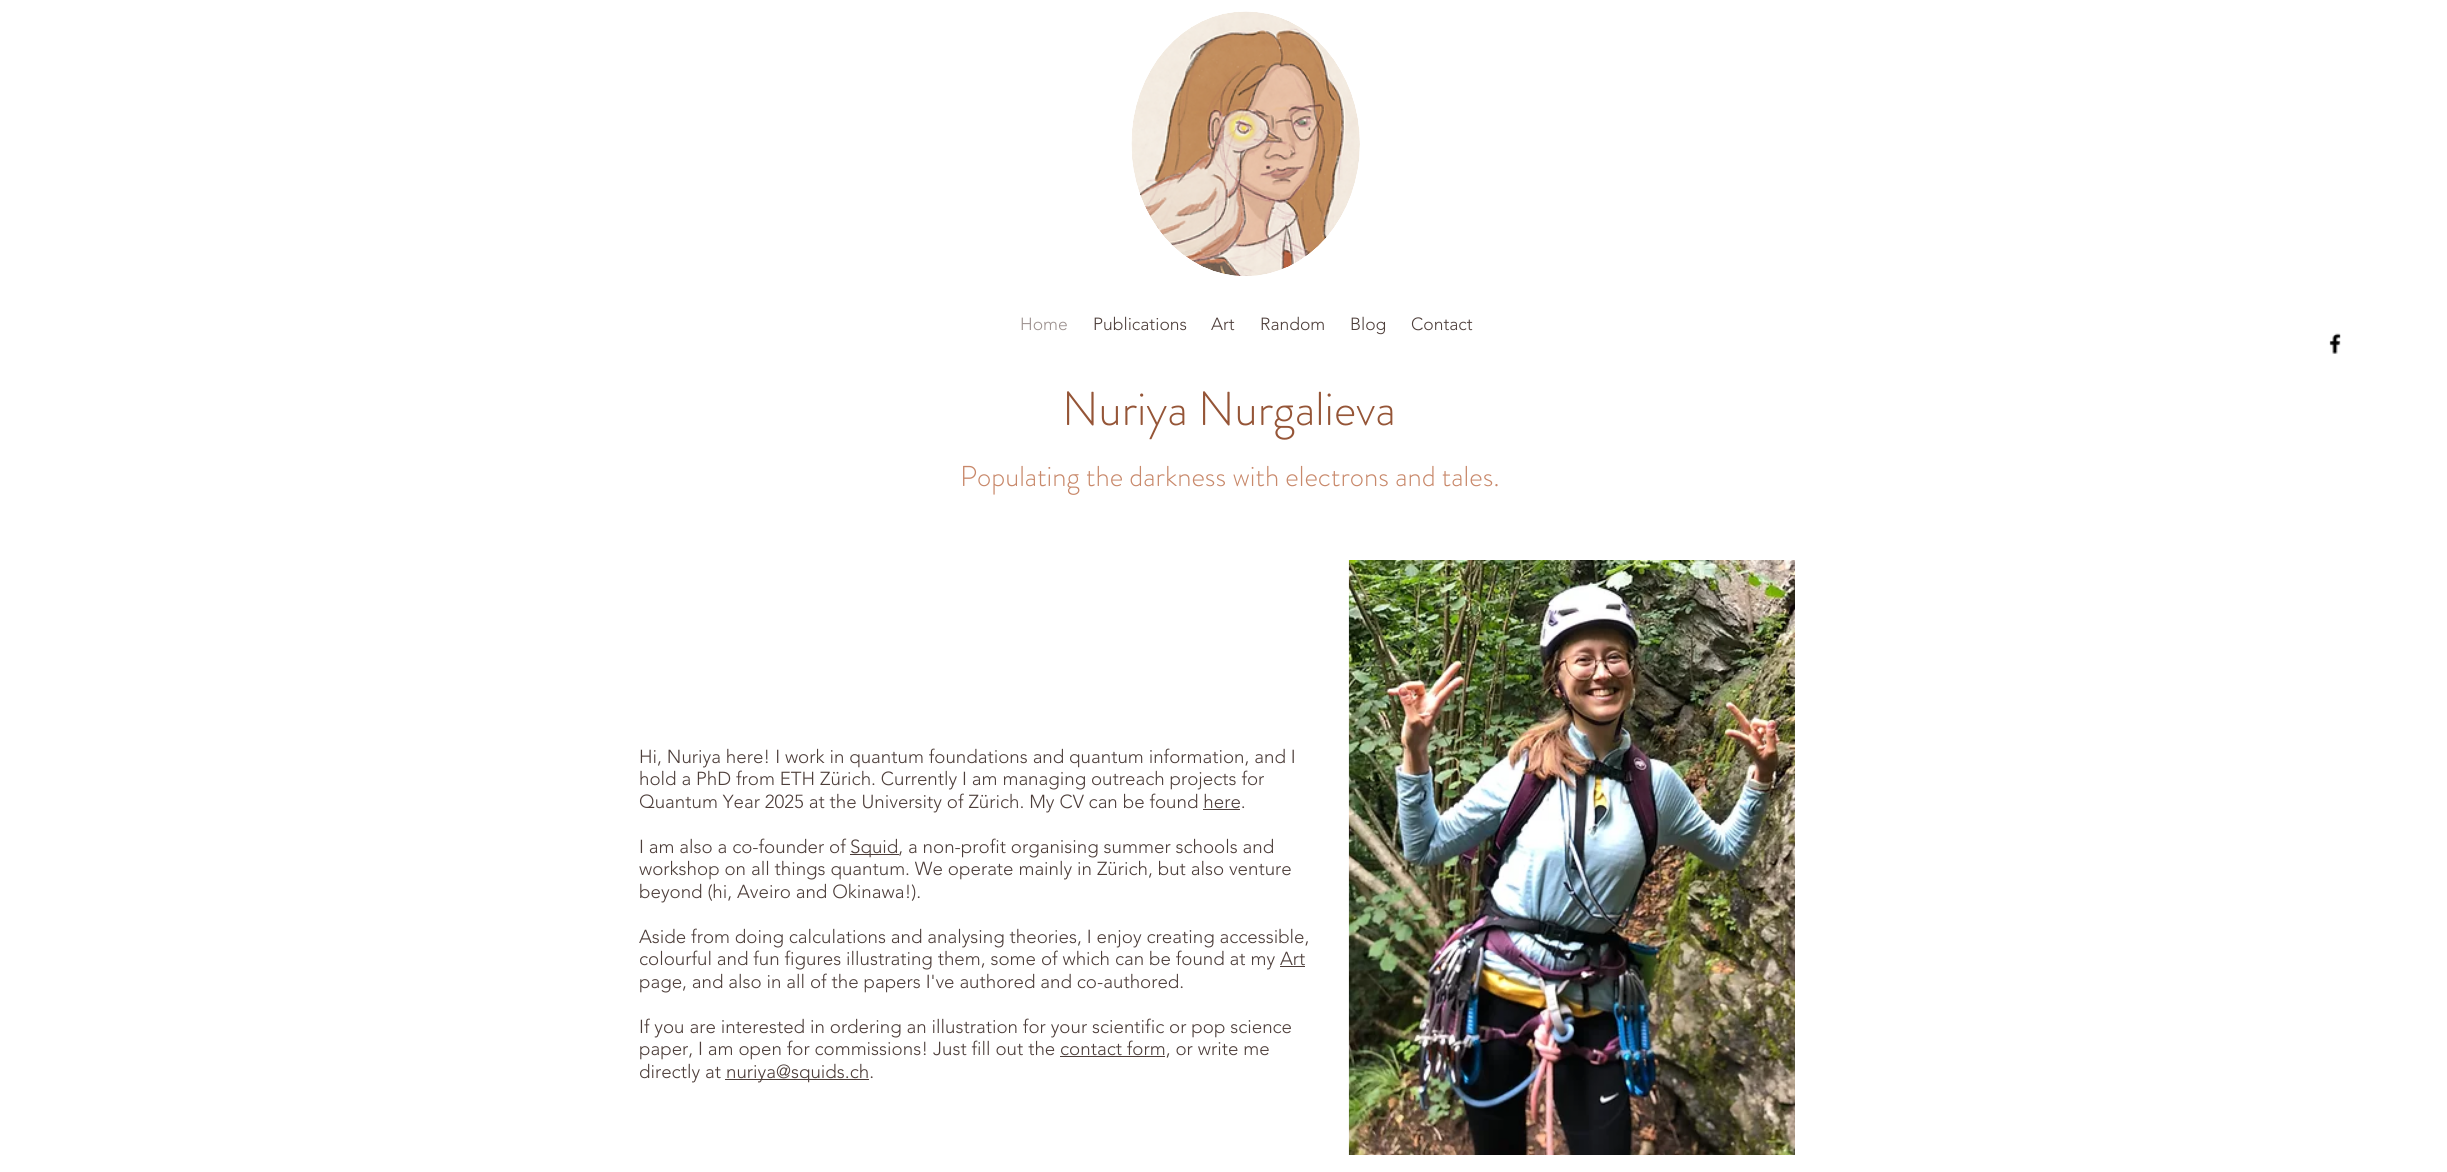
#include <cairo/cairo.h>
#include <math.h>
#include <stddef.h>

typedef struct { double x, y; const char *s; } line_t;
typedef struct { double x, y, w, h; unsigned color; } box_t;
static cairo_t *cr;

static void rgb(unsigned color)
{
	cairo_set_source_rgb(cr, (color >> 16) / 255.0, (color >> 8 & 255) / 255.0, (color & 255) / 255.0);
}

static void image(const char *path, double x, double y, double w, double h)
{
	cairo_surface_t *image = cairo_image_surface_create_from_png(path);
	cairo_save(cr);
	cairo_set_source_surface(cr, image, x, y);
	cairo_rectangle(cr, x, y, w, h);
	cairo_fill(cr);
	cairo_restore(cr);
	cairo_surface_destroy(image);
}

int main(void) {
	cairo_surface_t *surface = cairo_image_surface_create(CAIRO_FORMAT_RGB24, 2447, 1172);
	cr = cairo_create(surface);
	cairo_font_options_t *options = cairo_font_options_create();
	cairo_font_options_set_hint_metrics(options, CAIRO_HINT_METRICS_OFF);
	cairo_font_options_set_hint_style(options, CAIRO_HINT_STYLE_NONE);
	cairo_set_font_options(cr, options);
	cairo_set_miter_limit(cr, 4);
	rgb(0xffffff);
	cairo_paint(cr);
	image("img/1.png", 1131, 11, 229, 265);
	image("img/2.png", 2329, 333, 12, 21);
	{
		static const box_t items[] = {
			{1203, 809, 37, 1, 0x4d3e3a},
			{850, 854, 49, 1, 0x4d3e3a},
			{1280, 966, 25, 1, 0x4d3e3a},
			{1060, 1056, 105, 1, 0x4d3e3a},
			{725, 1079, 144, 1, 0x4d3e3a},
		};
		for (size_t i = 0; i < sizeof items / sizeof *items; i++) {
			rgb(items[i].color);
			cairo_rectangle(cr, items[i].x, items[i].y, items[i].w, items[i].h);
			cairo_fill(cr);
		}
	}
	image("img/3.png", 1348, 560, 447, 595);
	cairo_select_font_face(cr, "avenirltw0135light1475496 Light", CAIRO_FONT_SLANT_NORMAL, CAIRO_FONT_WEIGHT_NORMAL);
	cairo_set_font_size(cr, 17.5);
	rgb(0x9d9290);
	cairo_move_to(cr, 1020, 330);
	cairo_show_text(cr, "Home");
	rgb(0x4d3e3a);
	{
		static const line_t items[] = {
			{1093, 330, "Publications"},
			{1211, 330, "Art"},
			{1260, 330, "Random"},
			{1350, 330, "Blog"},
			{1411, 330, "Contact"},
		};
		for (size_t i = 0; i < sizeof items / sizeof *items; i++) {
			cairo_move_to(cr, items[i].x, items[i].y);
			cairo_show_text(cr, items[i].s);
		}
	}
	cairo_select_font_face(cr, "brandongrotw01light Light", CAIRO_FONT_SLANT_NORMAL, CAIRO_FONT_WEIGHT_NORMAL);
	cairo_set_font_size(cr, 47.5);
	rgb(0x955537);
	cairo_move_to(cr, 1062, 425);
	cairo_show_text(cr, "Nuriya Nurgalieva");
	cairo_set_font_size(cr, 28.75);
	rgb(0xc8886a);
	cairo_move_to(cr, 960, 486);
	cairo_show_text(cr, "Populating the darkness with electrons and tales.");
	cairo_select_font_face(cr, "avenirltw0135light1475496 Light", CAIRO_FONT_SLANT_NORMAL, CAIRO_FONT_WEIGHT_NORMAL);
	cairo_set_font_size(cr, 18.75);
	rgb(0x4d3e3a);
	{
		static const line_t items[] = {
			{639, 763, "Hi, Nuriya here! I work in quantum foundations and quantum information, and I"},
			{639, 785, "hold a PhD from ETH Zürich. Currently I am managing outreach projects for"},
			{639, 808, "Quantum Year 2025 at the University of Zürich. My CV can be found here."},
			{639, 853, "I am also a co-founder of"},
			{850, 853, "Squid, a non-profit organising summer schools and"},
			{639, 875, "workshop on all things quantum. We operate mainly in Zürich, but also venture"},
			{639, 898, "beyond (hi, Aveiro and Okinawa!)."},
			{639, 943, "Aside from doing calculations and analysing theories, I enjoy creating accessible,"},
			{639, 965, "colourful and fun figures illustrating them, some of which can be found at my Art"},
			{639, 988, "page, and also in all of the papers I've authored and co-authored."},
			{639, 1033, "If you are interested in ordering an illustration for your scientific or pop science"},
			{639, 1055, "paper, I am open for commissions! Just fill out the contact form, or write me"},
			{639, 1078, "directly at"},
			{726, 1078, "nuriya@squids.ch."},
		};
		for (size_t i = 0; i < sizeof items / sizeof *items; i++) {
			cairo_move_to(cr, items[i].x, items[i].y);
			cairo_show_text(cr, items[i].s);
		}
	}
	cairo_surface_write_to_png(surface, "page.png");
	cairo_font_options_destroy(options);
	cairo_destroy(cr);
	cairo_surface_destroy(surface);
	return 0;
}
